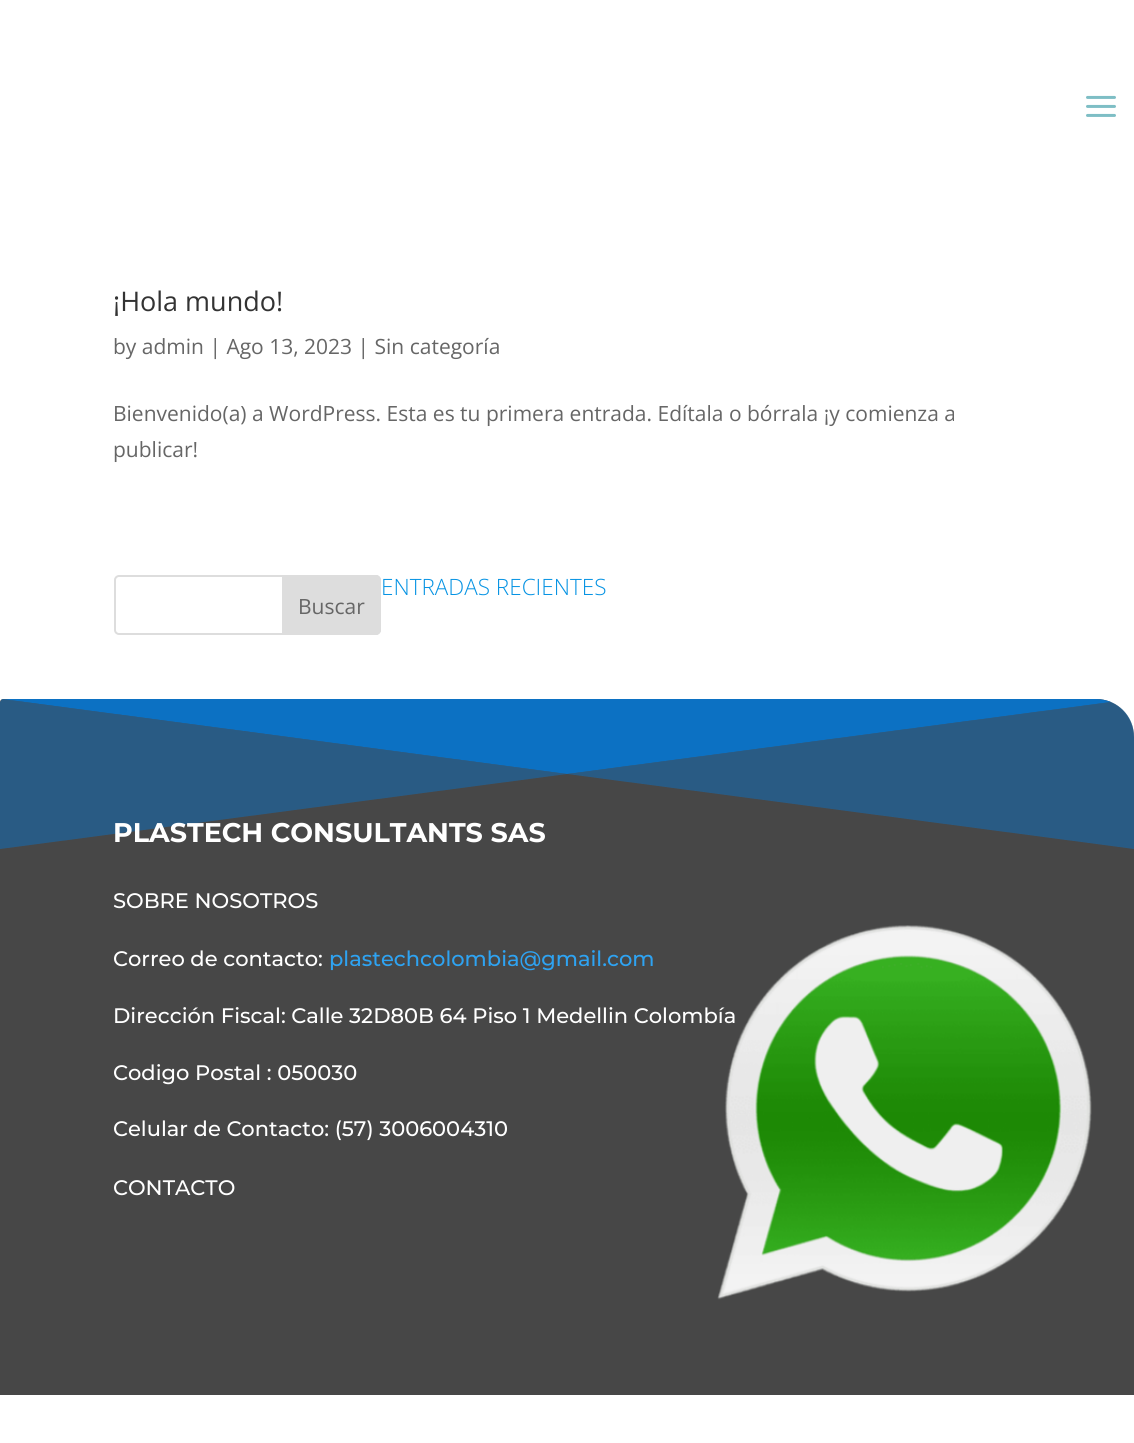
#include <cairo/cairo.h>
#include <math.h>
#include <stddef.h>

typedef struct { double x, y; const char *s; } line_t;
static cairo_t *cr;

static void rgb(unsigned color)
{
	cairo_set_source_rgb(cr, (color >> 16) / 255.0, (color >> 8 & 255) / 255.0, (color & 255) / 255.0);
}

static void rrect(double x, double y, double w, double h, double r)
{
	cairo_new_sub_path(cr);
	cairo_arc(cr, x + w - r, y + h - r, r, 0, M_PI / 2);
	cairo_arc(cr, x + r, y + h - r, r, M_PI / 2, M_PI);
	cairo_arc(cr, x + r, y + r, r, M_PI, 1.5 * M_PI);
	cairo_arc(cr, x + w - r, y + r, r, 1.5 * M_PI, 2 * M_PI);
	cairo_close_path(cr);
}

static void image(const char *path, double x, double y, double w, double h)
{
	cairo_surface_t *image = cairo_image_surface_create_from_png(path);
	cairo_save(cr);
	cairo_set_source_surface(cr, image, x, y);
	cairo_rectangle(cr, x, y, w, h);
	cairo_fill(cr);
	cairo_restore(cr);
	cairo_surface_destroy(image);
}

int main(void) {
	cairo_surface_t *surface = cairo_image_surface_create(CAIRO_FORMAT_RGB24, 1134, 1443);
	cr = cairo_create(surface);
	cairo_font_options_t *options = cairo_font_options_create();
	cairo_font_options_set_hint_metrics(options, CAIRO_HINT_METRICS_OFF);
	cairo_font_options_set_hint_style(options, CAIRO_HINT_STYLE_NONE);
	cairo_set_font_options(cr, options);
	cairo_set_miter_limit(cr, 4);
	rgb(0xffffff);
	cairo_paint(cr);
	image("img/1.png", 1086, 95, 30, 22);
	rrect(115, 576, 265, 58, 4);
	rgb(0xdddddd);
	cairo_stroke(cr);
	cairo_new_path(cr);
	cairo_move_to(cr, 283, 576);
	cairo_line_to(cr, 376, 576);
	cairo_curve_to(cr, 378, 576, 380, 578, 380, 580);
	cairo_line_to(cr, 380, 630);
	cairo_curve_to(cr, 380, 632, 378, 634, 376, 634);
	cairo_line_to(cr, 283, 634);
	cairo_close_path(cr);
	cairo_fill_preserve(cr);
	cairo_stroke(cr);
	rgb(0x474747);
	cairo_new_path(cr);
	cairo_move_to(cr, 3, 699);
	cairo_line_to(cr, 1096, 699);
	cairo_curve_to(cr, 1117, 699, 1134, 716, 1134, 737);
	cairo_line_to(cr, 1134, 1395);
	cairo_line_to(cr, 0, 1395);
	cairo_line_to(cr, 0, 702);
	cairo_curve_to(cr, 0, 700.5, 1.5, 699, 3, 699);
	cairo_close_path(cr);
	cairo_fill(cr);
	cairo_set_source_rgba(cr, 0.047, 0.443, 0.765, 0.5);
	cairo_new_path(cr);
	cairo_move_to(cr, 1134, 737);
	cairo_curve_to(cr, 1134, 721, 1125, 708, 1111, 702);
	cairo_line_to(cr, 567, 774);
	cairo_line_to(cr, 2, 699);
	cairo_line_to(cr, 0, 702);
	cairo_line_to(cr, 0, 849);
	cairo_line_to(cr, 567, 774);
	cairo_line_to(cr, 1134, 849);
	cairo_close_path(cr);
	cairo_fill(cr);
	rgb(0x0c71c3);
	cairo_new_path(cr);
	cairo_move_to(cr, 3, 699);
	cairo_line_to(cr, 2, 699);
	cairo_line_to(cr, 567, 774);
	cairo_line_to(cr, 1111, 702);
	cairo_curve_to(cr, 1106, 700, 1101, 699, 1096, 699);
	cairo_close_path(cr);
	cairo_fill(cr);
	cairo_select_font_face(cr, "Open Sans", CAIRO_FONT_SLANT_NORMAL, CAIRO_FONT_WEIGHT_NORMAL);
	cairo_set_font_size(cr, 27);
	rgb(0x333333);
	cairo_move_to(cr, 113, 311);
	cairo_show_text(cr, "¡Hola mundo!");
	cairo_set_font_size(cr, 21);
	rgb(0x666666);
	{
		static const line_t items[] = {
			{113, 354, "by admin | Ago 13, 2023 | Sin categoría"},
			{113, 421, "Bienvenido(a) a WordPress. Esta es tu primera entrada. Edítala o bórrala ¡y comienza a"},
			{113, 457, "publicar!"},
		};
		for (size_t i = 0; i < sizeof items / sizeof *items; i++) {
			cairo_move_to(cr, items[i].x, items[i].y);
			cairo_show_text(cr, items[i].s);
		}
	}
	cairo_select_font_face(cr, "Open Sans Light", CAIRO_FONT_SLANT_NORMAL, CAIRO_FONT_WEIGHT_NORMAL);
	cairo_set_font_size(cr, 22.5);
	rgb(0x0693e3);
	cairo_move_to(cr, 381, 595);
	cairo_show_text(cr, "ENTRADAS RECIENTES");
	cairo_select_font_face(cr, "Open Sans", CAIRO_FONT_SLANT_NORMAL, CAIRO_FONT_WEIGHT_NORMAL);
	cairo_set_font_size(cr, 21);
	rgb(0x666666);
	cairo_move_to(cr, 298, 614);
	cairo_show_text(cr, "Buscar");
	cairo_select_font_face(cr, "Montserrat", CAIRO_FONT_SLANT_NORMAL, CAIRO_FONT_WEIGHT_BOLD);
	cairo_set_font_size(cr, 27);
	rgb(0xffffff);
	cairo_move_to(cr, 113, 842);
	cairo_show_text(cr, "PLASTECH CONSULTANTS SAS");
	cairo_select_font_face(cr, "Montserrat Medium", CAIRO_FONT_SLANT_NORMAL, CAIRO_FONT_WEIGHT_NORMAL);
	cairo_set_font_size(cr, 21);
	cairo_move_to(cr, 113, 908);
	cairo_show_text(cr, "SOBRE NOSOTROS");
	cairo_move_to(cr, 113, 966);
	cairo_show_text(cr, "Correo de contacto:");
	rgb(0x2ea3f2);
	cairo_move_to(cr, 329, 966);
	cairo_show_text(cr, "plastechcolombia@gmail.com");
	rgb(0xffffff);
	{
		static const line_t items[] = {
			{113, 1023, "Dirección Fiscal: Calle 32D80B 64 Piso 1 Medellin Colombía"},
			{113, 1080, "Codigo Postal : 050030"},
			{113, 1136, "Celular de Contacto: (57) 3006004310"},
			{113, 1195, "CONTACTO"},
		};
		for (size_t i = 0; i < sizeof items / sizeof *items; i++) {
			cairo_move_to(cr, items[i].x, items[i].y);
			cairo_show_text(cr, items[i].s);
		}
	}
	image("img/2.png", 717, 925, 375, 375);
	cairo_surface_write_to_png(surface, "page.png");
	cairo_font_options_destroy(options);
	cairo_destroy(cr);
	cairo_surface_destroy(surface);
	return 0;
}
